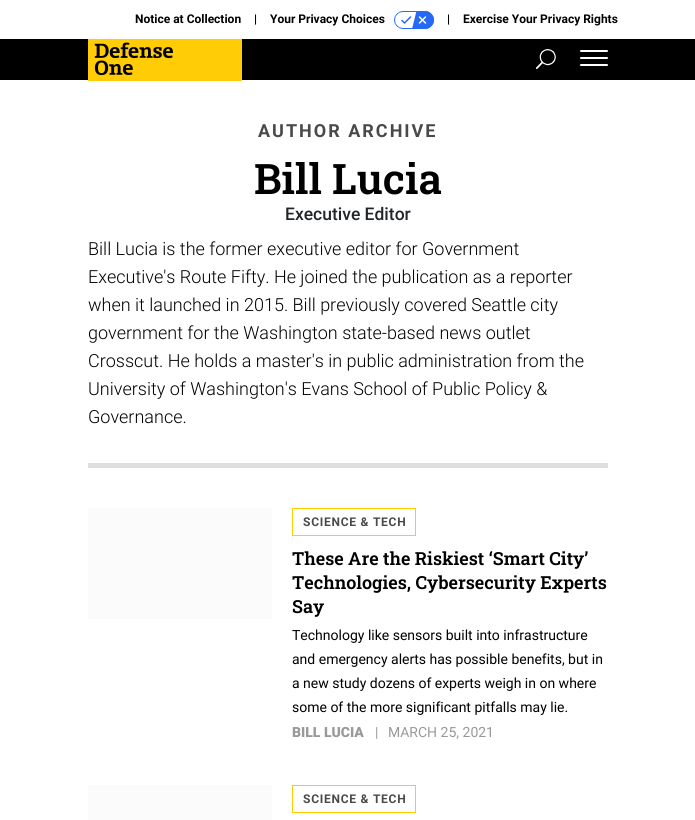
#include <cairo/cairo.h>
#include <math.h>
#include <stddef.h>

typedef struct { double x, y; const char *s; } line_t;
static cairo_t *cr;

static void rgb(unsigned color)
{
	cairo_set_source_rgb(cr, (color >> 16) / 255.0, (color >> 8 & 255) / 255.0, (color & 255) / 255.0);
}

static void tracked(double x, double y, const char *s, double letter, double word)
{
	cairo_move_to(cr, x, y);
	while (*s) {
		char ch[5] = {0};
		int n = 0;
		do ch[n++] = *s++; while ((*s & 0xC0) == 0x80);
		cairo_show_text(cr, ch);
		cairo_rel_move_to(cr, letter + word * (*ch == ' '), 0);
	}
}

static void rrect(double x, double y, double w, double h, double r)
{
	cairo_new_sub_path(cr);
	cairo_arc(cr, x + w - r, y + h - r, r, 0, M_PI / 2);
	cairo_arc(cr, x + r, y + h - r, r, M_PI / 2, M_PI);
	cairo_arc(cr, x + r, y + r, r, M_PI, 1.5 * M_PI);
	cairo_arc(cr, x + w - r, y + r, r, 1.5 * M_PI, 2 * M_PI);
	cairo_close_path(cr);
}

static void image(const char *path, double x, double y, double w, double h)
{
	cairo_surface_t *image = cairo_image_surface_create_from_png(path);
	cairo_save(cr);
	cairo_set_source_surface(cr, image, x, y);
	cairo_rectangle(cr, x, y, w, h);
	cairo_fill(cr);
	cairo_restore(cr);
	cairo_surface_destroy(image);
}

int main(void) {
	cairo_surface_t *surface = cairo_image_surface_create(CAIRO_FORMAT_RGB24, 695, 820);
	cr = cairo_create(surface);
	cairo_font_options_t *options = cairo_font_options_create();
	cairo_font_options_set_hint_metrics(options, CAIRO_HINT_METRICS_OFF);
	cairo_font_options_set_hint_style(options, CAIRO_HINT_STYLE_NONE);
	cairo_set_font_options(cr, options);
	cairo_set_miter_limit(cr, 4);
	rgb(0xffffff);
	cairo_paint(cr);
	image("img/1.png", 394, 11, 40, 18);
	rgb(0x000000);
	cairo_rectangle(cr, 0, 39, 695, 41);
	cairo_fill(cr);
	image("img/2.png", 88, 39, 154, 42);
	image("img/3.png", 536, 49, 20, 20);
	rgb(0xffffff);
	rrect(580, 57, 28, 2, 1);
	cairo_fill(cr);
	rrect(580, 50, 28, 2, 1);
	cairo_fill(cr);
	rrect(580, 64, 28, 2, 1);
	cairo_fill(cr);
	rgb(0xdfdfdf);
	cairo_rectangle(cr, 88, 463, 520, 5);
	cairo_fill(cr);
	rgb(0xfbfbfb);
	cairo_rectangle(cr, 88, 508, 184, 111);
	cairo_fill(cr);
	cairo_rectangle(cr, 292.5, 508.5, 123, 27);
	rgb(0xffcd00);
	cairo_set_line_width(cr, 1);
	cairo_stroke(cr);
	rgb(0xfbfbfb);
	cairo_rectangle(cr, 88, 785, 184, 35);
	cairo_fill(cr);
	cairo_rectangle(cr, 292.5, 785.5, 123, 27);
	rgb(0xffcd00);
	cairo_stroke(cr);
	cairo_select_font_face(cr, "Roboto", CAIRO_FONT_SLANT_NORMAL, CAIRO_FONT_WEIGHT_BOLD);
	cairo_set_font_size(cr, 12);
	rgb(0x000000);
	{
		static const line_t items[] = {
			{135, 23, "Notice at Collection"},
			{254, 23, "|"},
			{270, 23, "Your Privacy Choices"},
			{447, 23, "|"},
			{463, 23, "Exercise Your Privacy Rights"},
		};
		for (size_t i = 0; i < sizeof items / sizeof *items; i++) {
			cairo_move_to(cr, items[i].x, items[i].y);
			cairo_show_text(cr, items[i].s);
		}
	}
	cairo_set_font_size(cr, 18);
	rgb(0x494949);
	tracked(258, 137, "AUTHOR ARCHIVE", 2, 0);
	cairo_select_font_face(cr, "Roboto Slab SemiBold", CAIRO_FONT_SLANT_NORMAL, CAIRO_FONT_WEIGHT_NORMAL);
	cairo_set_font_size(cr, 42);
	rgb(0x000000);
	cairo_move_to(cr, 254, 194);
	cairo_show_text(cr, "Bill Lucia");
	cairo_select_font_face(cr, "Roboto Medium", CAIRO_FONT_SLANT_NORMAL, CAIRO_FONT_WEIGHT_NORMAL);
	cairo_set_font_size(cr, 17.5);
	rgb(0x212529);
	cairo_move_to(cr, 285, 220);
	cairo_show_text(cr, "Executive Editor");
	cairo_select_font_face(cr, "Roboto Light", CAIRO_FONT_SLANT_NORMAL, CAIRO_FONT_WEIGHT_NORMAL);
	cairo_set_font_size(cr, 18);
	rgb(0x000000);
	{
		static const line_t items[] = {
			{88, 255, "Bill Lucia is the former executive editor for Government"},
			{88, 283, "Executive's Route Fifty. He joined the publication as a reporter"},
			{88, 311, "when it launched in 2015. Bill previously covered Seattle city"},
			{88, 339, "government for the Washington state-based news outlet"},
			{88, 367, "Crosscut. He holds a master's in public administration from the"},
			{88, 395, "University of Washington's Evans School of Public Policy &"},
			{88, 423, "Governance."},
		};
		for (size_t i = 0; i < sizeof items / sizeof *items; i++) {
			cairo_move_to(cr, items[i].x, items[i].y);
			cairo_show_text(cr, items[i].s);
		}
	}
	cairo_select_font_face(cr, "Roboto", CAIRO_FONT_SLANT_NORMAL, CAIRO_FONT_WEIGHT_BOLD);
	cairo_set_font_size(cr, 12);
	rgb(0x494949);
	tracked(303, 526, "SCIENCE & TECH", 0.75, 0);
	cairo_select_font_face(cr, "Roboto Slab SemiBold", CAIRO_FONT_SLANT_NORMAL, CAIRO_FONT_WEIGHT_NORMAL);
	cairo_set_font_size(cr, 18);
	rgb(0x000000);
	{
		static const line_t items[] = {
			{292, 565, "These Are the Riskiest ‘Smart City’"},
			{292, 589, "Technologies, Cybersecurity Experts"},
			{292, 613, "Say"},
		};
		for (size_t i = 0; i < sizeof items / sizeof *items; i++) {
			cairo_move_to(cr, items[i].x, items[i].y);
			cairo_show_text(cr, items[i].s);
		}
	}
	cairo_select_font_face(cr, "Roboto", CAIRO_FONT_SLANT_NORMAL, CAIRO_FONT_WEIGHT_NORMAL);
	cairo_set_font_size(cr, 14);
	{
		static const line_t items[] = {
			{292, 640, "Technology like sensors built into infrastructure"},
			{292, 664, "and emergency alerts has possible benefits, but in"},
			{292, 688, "a new study dozens of experts weigh in on where"},
			{292, 712, "some of the more significant pitfalls may lie."},
		};
		for (size_t i = 0; i < sizeof items / sizeof *items; i++) {
			cairo_move_to(cr, items[i].x, items[i].y);
			cairo_show_text(cr, items[i].s);
		}
	}
	cairo_select_font_face(cr, "Roboto Black", CAIRO_FONT_SLANT_NORMAL, CAIRO_FONT_WEIGHT_NORMAL);
	rgb(0x999999);
	cairo_move_to(cr, 292, 737);
	cairo_show_text(cr, "BILL LUCIA");
	cairo_select_font_face(cr, "Roboto", CAIRO_FONT_SLANT_NORMAL, CAIRO_FONT_WEIGHT_NORMAL);
	cairo_move_to(cr, 375, 737);
	cairo_show_text(cr, "|");
	cairo_move_to(cr, 388, 737);
	cairo_show_text(cr, "MARCH 25, 2021");
	cairo_select_font_face(cr, "Roboto", CAIRO_FONT_SLANT_NORMAL, CAIRO_FONT_WEIGHT_BOLD);
	cairo_set_font_size(cr, 12);
	rgb(0x494949);
	tracked(303, 803, "SCIENCE & TECH", 0.75, 0);
	cairo_surface_write_to_png(surface, "page.png");
	cairo_font_options_destroy(options);
	cairo_destroy(cr);
	cairo_surface_destroy(surface);
	return 0;
}
